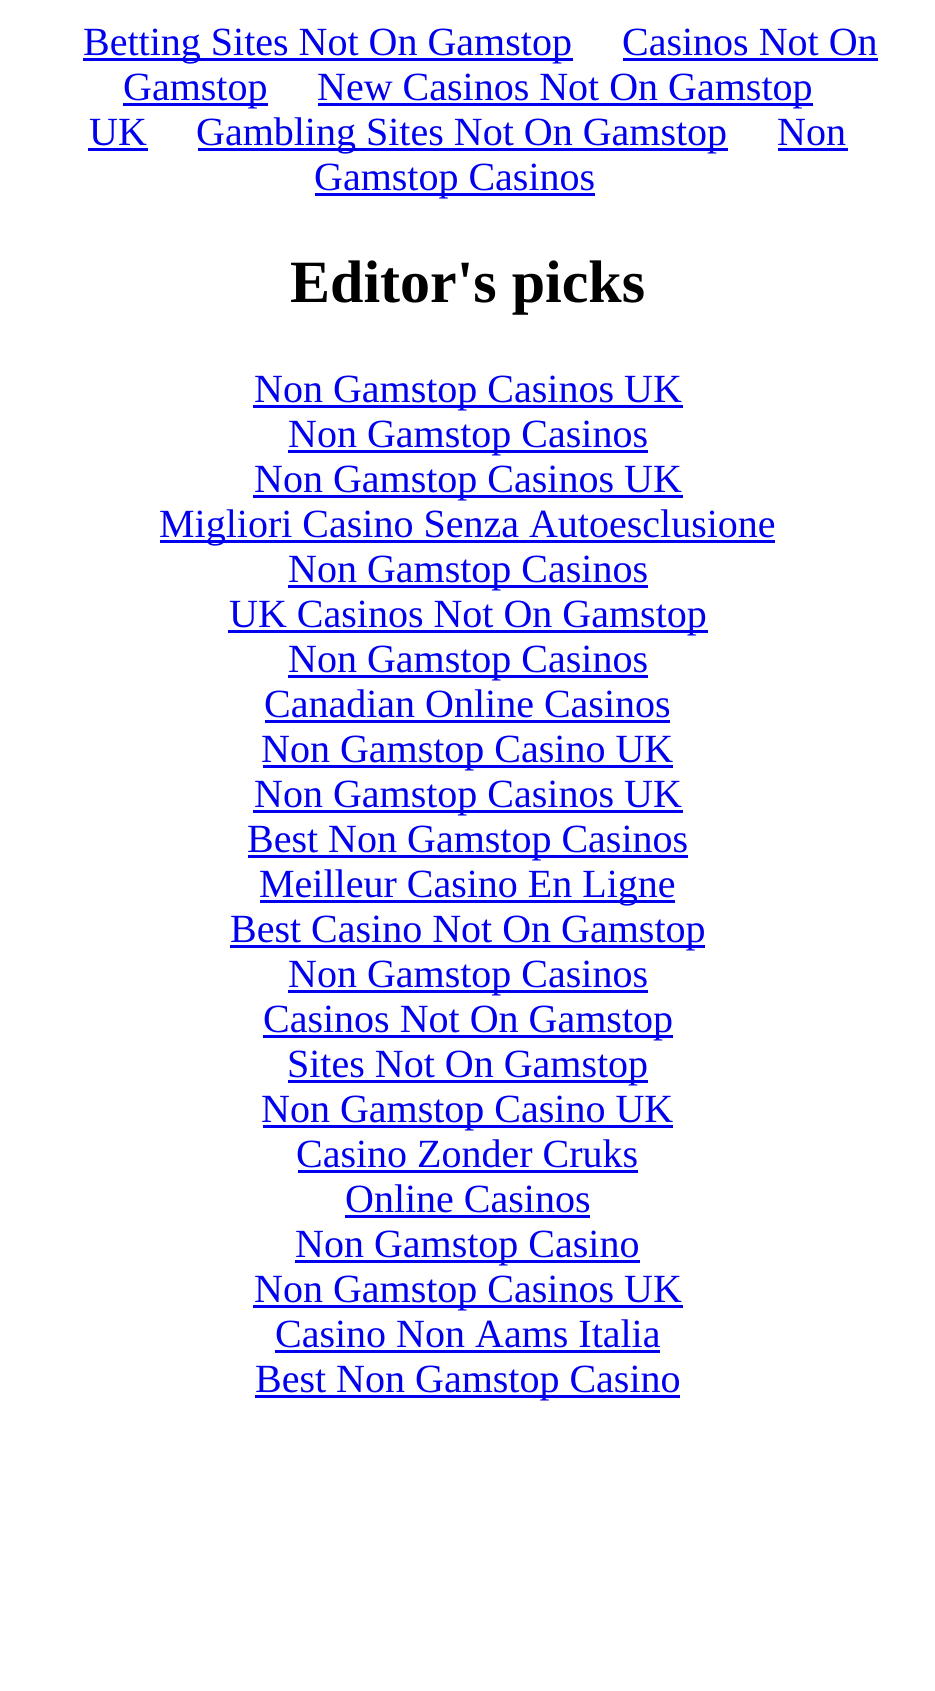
#include <cairo/cairo.h>
#include <math.h>
#include <stddef.h>

typedef struct { double x, y; const char *s; } line_t;
typedef struct { double x, y, w, h; unsigned color; } box_t;
static cairo_t *cr;

static void rgb(unsigned color)
{
	cairo_set_source_rgb(cr, (color >> 16) / 255.0, (color >> 8 & 255) / 255.0, (color & 255) / 255.0);
}

int main(void) {
	cairo_surface_t *surface = cairo_image_surface_create(CAIRO_FORMAT_RGB24, 935, 1691);
	cr = cairo_create(surface);
	cairo_font_options_t *options = cairo_font_options_create();
	cairo_font_options_set_hint_metrics(options, CAIRO_HINT_METRICS_OFF);
	cairo_font_options_set_hint_style(options, CAIRO_HINT_STYLE_NONE);
	cairo_set_font_options(cr, options);
	cairo_set_miter_limit(cr, 4);
	rgb(0xffffff);
	cairo_paint(cr);
	{
		static const box_t items[] = {
			{83, 58, 490, 3, 0x0000ee},
			{623, 58, 255, 3, 0x0000ee},
			{123, 103, 145, 3, 0x0000ee},
			{318, 103, 495, 3, 0x0000ee},
			{88, 148, 60, 3, 0x0000ee},
			{198, 148, 530, 3, 0x0000ee},
			{778, 148, 70, 3, 0x0000ee},
			{315, 193, 280, 3, 0x0000ee},
			{253, 405, 430, 3, 0x0000ee},
			{288, 450, 360, 3, 0x0000ee},
			{253, 495, 430, 3, 0x0000ee},
			{160, 540, 615, 3, 0x0000ee},
			{288, 585, 360, 3, 0x0000ee},
			{228, 630, 480, 3, 0x0000ee},
			{288, 675, 360, 3, 0x0000ee},
			{265, 720, 405, 3, 0x0000ee},
			{263, 765, 410, 3, 0x0000ee},
			{253, 810, 430, 3, 0x0000ee},
			{248, 855, 440, 3, 0x0000ee},
			{260, 900, 415, 3, 0x0000ee},
			{230, 945, 475, 3, 0x0000ee},
			{288, 990, 360, 3, 0x0000ee},
			{263, 1035, 410, 3, 0x0000ee},
			{288, 1080, 360, 3, 0x0000ee},
			{263, 1125, 410, 3, 0x0000ee},
			{298, 1170, 340, 3, 0x0000ee},
			{345, 1215, 245, 3, 0x0000ee},
			{295, 1260, 345, 3, 0x0000ee},
			{253, 1305, 430, 3, 0x0000ee},
			{275, 1350, 385, 3, 0x0000ee},
			{255, 1395, 425, 3, 0x0000ee},
		};
		for (size_t i = 0; i < sizeof items / sizeof *items; i++) {
			rgb(items[i].color);
			cairo_rectangle(cr, items[i].x, items[i].y, items[i].w, items[i].h);
			cairo_fill(cr);
		}
	}
	cairo_select_font_face(cr, "Liberation Serif", CAIRO_FONT_SLANT_NORMAL, CAIRO_FONT_WEIGHT_NORMAL);
	cairo_set_font_size(cr, 40);
	{
		static const line_t items[] = {
			{83, 55, "Betting Sites Not On Gamstop"},
			{622, 55, "Casinos Not On"},
			{123, 100, "Gamstop"},
			{317, 100, "New Casinos Not On Gamstop"},
			{89, 145, "UK"},
			{196, 145, "Gambling Sites Not On Gamstop"},
			{777, 145, "Non"},
			{314, 190, "Gamstop Casinos"},
		};
		for (size_t i = 0; i < sizeof items / sizeof *items; i++) {
			cairo_move_to(cr, items[i].x, items[i].y);
			cairo_show_text(cr, items[i].s);
		}
	}
	cairo_select_font_face(cr, "Liberation Serif", CAIRO_FONT_SLANT_NORMAL, CAIRO_FONT_WEIGHT_BOLD);
	cairo_set_font_size(cr, 60);
	rgb(0x000000);
	cairo_move_to(cr, 290, 302);
	cairo_show_text(cr, "Editor's picks");
	cairo_select_font_face(cr, "Liberation Serif", CAIRO_FONT_SLANT_NORMAL, CAIRO_FONT_WEIGHT_NORMAL);
	cairo_set_font_size(cr, 40);
	rgb(0x0000ee);
	{
		static const line_t items[] = {
			{254, 402, "Non Gamstop Casinos UK"},
			{288, 447, "Non Gamstop Casinos"},
			{254, 492, "Non Gamstop Casinos UK"},
			{159, 537, "Migliori Casino Senza Autoesclusione"},
			{288, 582, "Non Gamstop Casinos"},
			{229, 627, "UK Casinos Not On Gamstop"},
			{288, 672, "Non Gamstop Casinos"},
			{264, 717, "Canadian Online Casinos"},
			{261, 762, "Non Gamstop Casino UK"},
			{254, 807, "Non Gamstop Casinos UK"},
			{247, 852, "Best Non Gamstop Casinos"},
			{259, 897, "Meilleur Casino En Ligne"},
			{230, 942, "Best Casino Not On Gamstop"},
			{288, 987, "Non Gamstop Casinos"},
			{263, 1032, "Casinos Not On Gamstop"},
			{287, 1077, "Sites Not On Gamstop"},
			{261, 1122, "Non Gamstop Casino UK"},
			{296, 1167, "Casino Zonder Cruks"},
			{345, 1212, "Online Casinos"},
			{295, 1257, "Non Gamstop Casino"},
			{254, 1302, "Non Gamstop Casinos UK"},
			{275, 1347, "Casino Non Aams Italia"},
			{255, 1392, "Best Non Gamstop Casino"},
		};
		for (size_t i = 0; i < sizeof items / sizeof *items; i++) {
			cairo_move_to(cr, items[i].x, items[i].y);
			cairo_show_text(cr, items[i].s);
		}
	}
	cairo_surface_write_to_png(surface, "page.png");
	cairo_font_options_destroy(options);
	cairo_destroy(cr);
	cairo_surface_destroy(surface);
	return 0;
}
